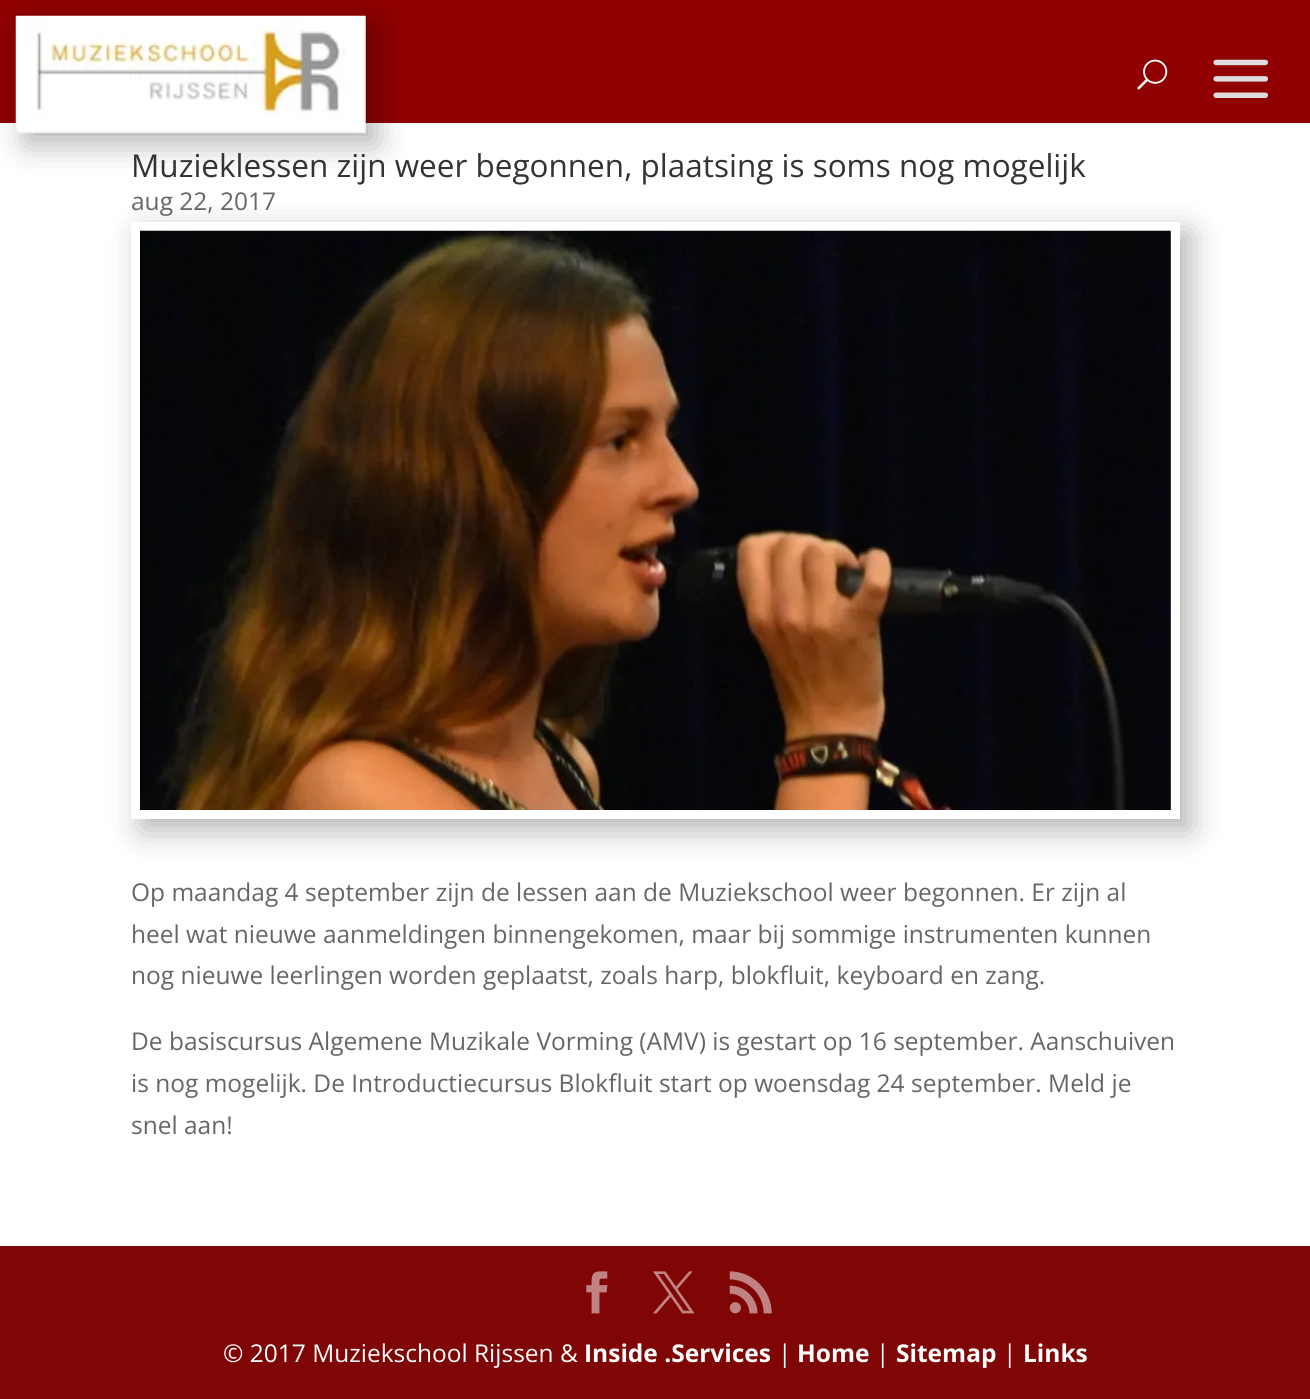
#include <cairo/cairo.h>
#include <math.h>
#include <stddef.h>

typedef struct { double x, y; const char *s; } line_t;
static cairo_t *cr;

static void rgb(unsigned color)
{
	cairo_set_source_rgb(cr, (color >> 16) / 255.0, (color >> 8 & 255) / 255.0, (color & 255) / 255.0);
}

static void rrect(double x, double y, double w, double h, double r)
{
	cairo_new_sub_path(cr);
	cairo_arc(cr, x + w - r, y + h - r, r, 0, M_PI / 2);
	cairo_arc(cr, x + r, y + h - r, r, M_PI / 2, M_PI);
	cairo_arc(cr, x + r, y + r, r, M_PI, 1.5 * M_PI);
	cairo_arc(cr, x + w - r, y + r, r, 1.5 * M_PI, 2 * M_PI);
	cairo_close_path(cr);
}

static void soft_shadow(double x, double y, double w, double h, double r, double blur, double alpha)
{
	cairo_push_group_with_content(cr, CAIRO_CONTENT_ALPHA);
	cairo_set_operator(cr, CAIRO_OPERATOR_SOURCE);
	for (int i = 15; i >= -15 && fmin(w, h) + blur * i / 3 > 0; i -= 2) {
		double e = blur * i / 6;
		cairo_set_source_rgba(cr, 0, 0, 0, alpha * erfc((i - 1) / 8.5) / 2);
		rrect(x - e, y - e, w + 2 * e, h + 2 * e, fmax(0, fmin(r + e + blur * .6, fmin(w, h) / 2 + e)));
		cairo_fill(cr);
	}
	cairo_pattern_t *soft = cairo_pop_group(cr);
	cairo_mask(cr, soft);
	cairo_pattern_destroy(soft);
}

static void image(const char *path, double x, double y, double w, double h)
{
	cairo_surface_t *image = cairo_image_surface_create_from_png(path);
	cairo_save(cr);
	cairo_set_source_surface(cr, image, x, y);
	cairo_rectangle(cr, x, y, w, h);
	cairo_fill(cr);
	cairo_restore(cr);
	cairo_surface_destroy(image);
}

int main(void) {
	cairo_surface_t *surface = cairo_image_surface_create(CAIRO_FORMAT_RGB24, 1310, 1399);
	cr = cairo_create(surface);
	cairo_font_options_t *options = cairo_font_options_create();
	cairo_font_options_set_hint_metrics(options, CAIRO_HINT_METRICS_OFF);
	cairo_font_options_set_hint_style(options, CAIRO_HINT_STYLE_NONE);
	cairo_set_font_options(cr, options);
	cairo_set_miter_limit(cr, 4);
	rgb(0xffffff);
	cairo_paint(cr);
	rgb(0x900000);
	cairo_rectangle(cr, 0, 0, 1310, 123);
	cairo_fill(cr);
	rgb(0x000000);
	soft_shadow(26, 26, 350, 118, 0, 16, 0.3);
	image("img/1.png", 15, 15, 351, 118);
	image("img/2.png", 1137, 59, 31, 31);
	image("img/3.png", 1213, 59, 56, 39);
	soft_shadow(142, 233, 1048, 597, 0, 16, 0.3);
	cairo_rectangle(cr, 135.5, 226.5, 1040, 588);
	rgb(0xffffff);
	cairo_set_line_width(cr, 9);
	cairo_stroke(cr);
	image("img/4.png", 140, 230, 1031, 580);
	rgb(0x800505);
	cairo_rectangle(cr, 0, 1246, 1310, 153);
	cairo_fill(cr);
	image("img/5.png", 586, 1271, 22, 43);
	image("img/6.png", 653, 1271, 42, 43);
	image("img/7.png", 729, 1271, 43, 43);
	cairo_select_font_face(cr, "Open Sans", CAIRO_FONT_SLANT_NORMAL, CAIRO_FONT_WEIGHT_NORMAL);
	cairo_set_font_size(cr, 31.5);
	rgb(0x333333);
	cairo_move_to(cr, 131, 177);
	cairo_show_text(cr, "Muzieklessen zijn weer begonnen, plaatsing is soms nog mogelijk");
	cairo_set_font_size(cr, 24.5);
	rgb(0x666666);
	{
		static const line_t items[] = {
			{131, 210, "aug 22, 2017"},
			{131, 901, "Op maandag 4 september zijn de lessen aan de Muziekschool weer begonnen. Er zijn al"},
			{131, 943, "heel wat nieuwe aanmeldingen binnengekomen, maar bij sommige instrumenten kunnen"},
			{131, 984, "nog nieuwe leerlingen worden geplaatst, zoals harp, blokfluit, keyboard en zang."},
			{131, 1050, "De basiscursus Algemene Muzikale Vorming (AMV) is gestart op 16 september. Aanschuiven"},
			{131, 1092, "is nog mogelijk. De Introductiecursus Blokfluit start op woensdag 24 september. Meld je"},
			{131, 1134, "snel aan!"},
		};
		for (size_t i = 0; i < sizeof items / sizeof *items; i++) {
			cairo_move_to(cr, items[i].x, items[i].y);
			cairo_show_text(cr, items[i].s);
		}
	}
	rgb(0xffffff);
	cairo_move_to(cr, 223, 1362);
	cairo_show_text(cr, "© 2017 Muziekschool Rijssen &");
	cairo_select_font_face(cr, "Open Sans", CAIRO_FONT_SLANT_NORMAL, CAIRO_FONT_WEIGHT_BOLD);
	cairo_move_to(cr, 584, 1362);
	cairo_show_text(cr, "Inside .Services");
	cairo_select_font_face(cr, "Open Sans", CAIRO_FONT_SLANT_NORMAL, CAIRO_FONT_WEIGHT_NORMAL);
	cairo_move_to(cr, 778, 1362);
	cairo_show_text(cr, "|");
	cairo_select_font_face(cr, "Open Sans", CAIRO_FONT_SLANT_NORMAL, CAIRO_FONT_WEIGHT_BOLD);
	cairo_move_to(cr, 797, 1362);
	cairo_show_text(cr, "Home");
	cairo_select_font_face(cr, "Open Sans", CAIRO_FONT_SLANT_NORMAL, CAIRO_FONT_WEIGHT_NORMAL);
	cairo_move_to(cr, 876, 1362);
	cairo_show_text(cr, "|");
	cairo_select_font_face(cr, "Open Sans", CAIRO_FONT_SLANT_NORMAL, CAIRO_FONT_WEIGHT_BOLD);
	cairo_move_to(cr, 896, 1362);
	cairo_show_text(cr, "Sitemap");
	cairo_select_font_face(cr, "Open Sans", CAIRO_FONT_SLANT_NORMAL, CAIRO_FONT_WEIGHT_NORMAL);
	cairo_move_to(cr, 1003, 1362);
	cairo_show_text(cr, "|");
	cairo_select_font_face(cr, "Open Sans", CAIRO_FONT_SLANT_NORMAL, CAIRO_FONT_WEIGHT_BOLD);
	cairo_move_to(cr, 1023, 1362);
	cairo_show_text(cr, "Links");
	cairo_surface_write_to_png(surface, "page.png");
	cairo_font_options_destroy(options);
	cairo_destroy(cr);
	cairo_surface_destroy(surface);
	return 0;
}
